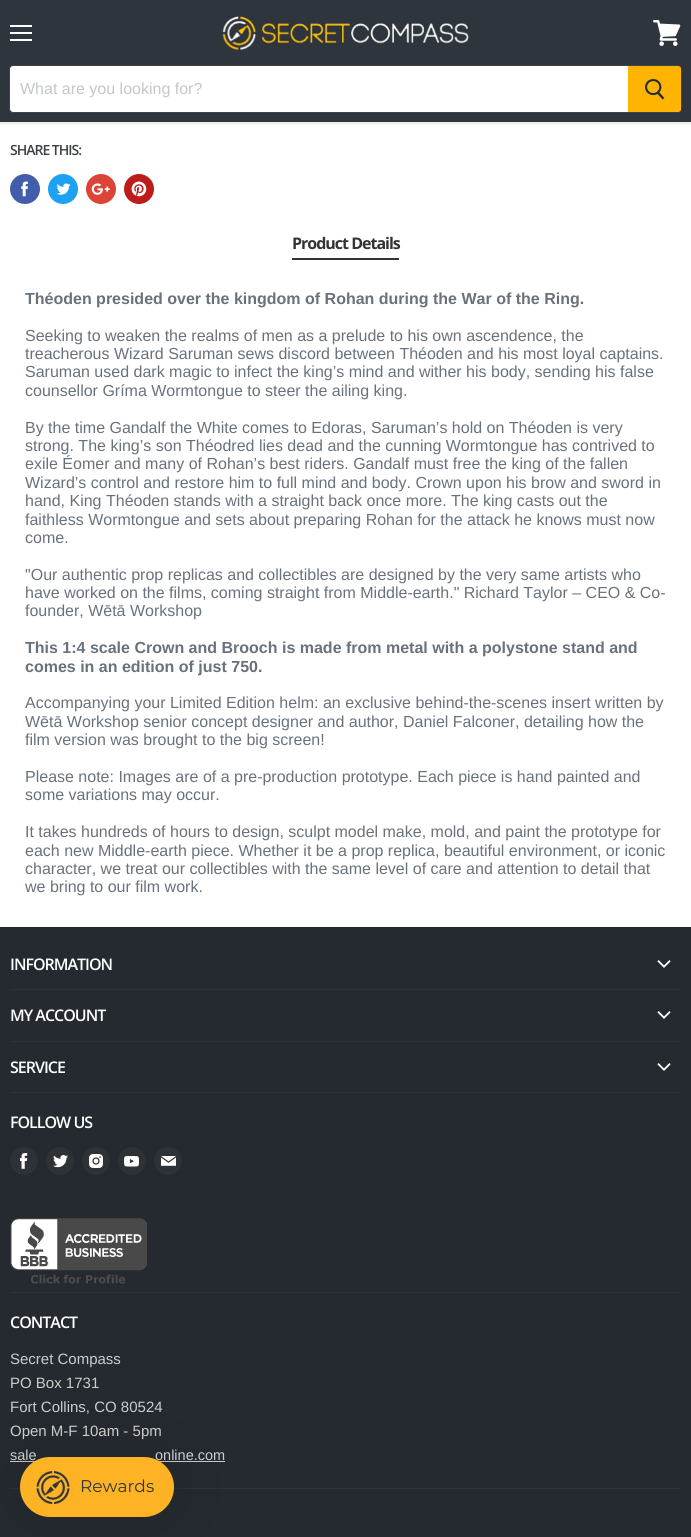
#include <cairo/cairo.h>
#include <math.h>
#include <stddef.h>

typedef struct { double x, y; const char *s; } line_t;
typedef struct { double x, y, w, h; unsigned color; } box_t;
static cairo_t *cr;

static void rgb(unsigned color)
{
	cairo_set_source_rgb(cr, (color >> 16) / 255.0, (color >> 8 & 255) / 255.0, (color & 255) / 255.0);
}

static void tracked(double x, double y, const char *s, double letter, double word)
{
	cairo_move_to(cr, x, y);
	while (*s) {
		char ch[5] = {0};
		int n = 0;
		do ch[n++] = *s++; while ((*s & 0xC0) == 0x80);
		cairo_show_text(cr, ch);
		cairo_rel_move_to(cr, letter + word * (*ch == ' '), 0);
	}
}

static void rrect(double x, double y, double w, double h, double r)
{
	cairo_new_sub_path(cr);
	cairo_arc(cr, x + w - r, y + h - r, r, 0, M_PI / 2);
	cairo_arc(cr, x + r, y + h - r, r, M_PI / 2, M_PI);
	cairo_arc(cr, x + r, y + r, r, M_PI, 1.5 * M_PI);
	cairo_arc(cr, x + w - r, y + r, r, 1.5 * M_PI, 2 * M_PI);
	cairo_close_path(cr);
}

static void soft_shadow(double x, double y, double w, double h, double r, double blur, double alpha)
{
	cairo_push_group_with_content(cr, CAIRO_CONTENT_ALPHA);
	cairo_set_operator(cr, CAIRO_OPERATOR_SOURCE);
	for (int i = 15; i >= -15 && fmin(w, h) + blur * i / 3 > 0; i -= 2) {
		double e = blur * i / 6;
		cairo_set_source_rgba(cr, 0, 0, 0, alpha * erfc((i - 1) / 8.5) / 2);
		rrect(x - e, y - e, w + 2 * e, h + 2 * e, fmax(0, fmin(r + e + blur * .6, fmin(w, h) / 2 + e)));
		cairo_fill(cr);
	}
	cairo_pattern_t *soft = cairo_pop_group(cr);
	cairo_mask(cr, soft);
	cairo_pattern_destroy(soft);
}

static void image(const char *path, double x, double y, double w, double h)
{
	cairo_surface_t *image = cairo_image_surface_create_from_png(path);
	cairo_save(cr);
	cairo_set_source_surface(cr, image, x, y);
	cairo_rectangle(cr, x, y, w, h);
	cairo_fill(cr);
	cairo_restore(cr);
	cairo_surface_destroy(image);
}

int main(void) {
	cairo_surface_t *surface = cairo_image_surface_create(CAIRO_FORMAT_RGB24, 691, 1537);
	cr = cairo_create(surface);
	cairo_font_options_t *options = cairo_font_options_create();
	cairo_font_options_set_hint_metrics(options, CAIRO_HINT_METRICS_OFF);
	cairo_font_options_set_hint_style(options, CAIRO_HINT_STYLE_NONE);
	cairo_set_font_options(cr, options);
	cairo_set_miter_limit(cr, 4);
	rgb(0xffffff);
	cairo_paint(cr);
	rgb(0x7f7f7f);
	soft_shadow(0, 1, 691, 122, 0, 2, 0.25);
	{
		static const box_t items[] = {
			{0, 0, 691, 122, 0x2f353c},
			{10, 25, 22, 2, 0xffffff},
			{10, 32, 22, 2, 0xffffff},
			{10, 39, 22, 2, 0xffffff},
		};
		for (size_t i = 0; i < sizeof items / sizeof *items; i++) {
			rgb(items[i].color);
			cairo_rectangle(cr, items[i].x, items[i].y, items[i].w, items[i].h);
			cairo_fill(cr);
		}
	}
	image("img/1.png", 653, 20, 28, 26);
	image("img/2.png", 222, 16, 247, 34);
	cairo_new_path(cr);
	cairo_move_to(cr, 12, 65.5);
	cairo_line_to(cr, 678, 65.5);
	cairo_curve_to(cr, 680, 65.5, 681.5, 67, 681.5, 69);
	cairo_line_to(cr, 681.5, 109);
	cairo_curve_to(cr, 681.5, 111, 680, 112.5, 678, 112.5);
	cairo_line_to(cr, 12, 112.5);
	cairo_curve_to(cr, 10.5, 112.5, 9.5, 111.5, 9.5, 110);
	cairo_line_to(cr, 9.5, 68);
	cairo_curve_to(cr, 9.5, 66.5, 10.5, 65.5, 12, 65.5);
	cairo_close_path(cr);
	cairo_set_source_rgba(cr, 0.498, 0.498, 0.498, 0.2);
	cairo_set_line_width(cr, 1);
	cairo_stroke(cr);
	rgb(0xffffff);
	cairo_new_path(cr);
	cairo_move_to(cr, 13, 66);
	cairo_line_to(cr, 628, 66);
	cairo_line_to(cr, 628, 112);
	cairo_line_to(cr, 13, 112);
	cairo_curve_to(cr, 11.5, 112, 10, 110.5, 10, 109);
	cairo_line_to(cr, 10, 69);
	cairo_curve_to(cr, 10, 67.5, 11.5, 66, 13, 66);
	cairo_close_path(cr);
	cairo_fill(cr);
	rgb(0xffb401);
	cairo_new_path(cr);
	cairo_move_to(cr, 628.5, 66.5);
	cairo_line_to(cr, 678, 66.5);
	cairo_curve_to(cr, 679.5, 66.5, 680.5, 67.5, 680.5, 69);
	cairo_line_to(cr, 680.5, 109);
	cairo_curve_to(cr, 680.5, 110.5, 679.5, 111.5, 678, 111.5);
	cairo_line_to(cr, 628.5, 111.5);
	cairo_close_path(cr);
	cairo_fill_preserve(cr);
	cairo_stroke(cr);
	image("img/3.png", 645, 79, 20, 21);
	rgb(0x425dab);
	cairo_arc(cr, 25, 189, 15, 0, 2 * M_PI);
	cairo_fill(cr);
	image("img/4.png", 21, 181, 7, 16);
	rgb(0x1da1f2);
	cairo_arc(cr, 63, 189, 15, 0, 2 * M_PI);
	cairo_fill(cr);
	image("img/5.png", 56, 183, 15, 12);
	rgb(0xdb4437);
	cairo_arc(cr, 101, 189, 15, 0, 2 * M_PI);
	cairo_fill(cr);
	image("img/6.png", 91, 183, 19, 12);
	rgb(0xbd1c1c);
	cairo_arc(cr, 139, 189, 15, 0, 2 * M_PI);
	cairo_fill(cr);
	image("img/7.png", 131, 181, 16, 16);
	{
		static const box_t items[] = {
			{292, 258, 107, 2, 0x333333},
			{0, 927, 691, 610, 0x242a2f},
			{10, 989, 671, 1, 0x2c3236},
		};
		for (size_t i = 0; i < sizeof items / sizeof *items; i++) {
			rgb(items[i].color);
			cairo_rectangle(cr, items[i].x, items[i].y, items[i].w, items[i].h);
			cairo_fill(cr);
		}
	}
	image("img/8.png", 657, 960, 14, 8);
	cairo_rectangle(cr, 10, 1041, 671, 1);
	cairo_fill(cr);
	image("img/8.png", 657, 1011, 14, 8);
	cairo_rectangle(cr, 10, 1092, 671, 1);
	cairo_fill(cr);
	image("img/8.png", 657, 1063, 14, 8);
	cairo_rectangle(cr, 10, 1292, 671, 1);
	cairo_fill(cr);
	cairo_arc(cr, 24, 1161, 14, 0, 2 * M_PI);
	cairo_fill(cr);
	image("img/9.png", 20, 1153, 8, 16);
	cairo_arc(cr, 60, 1161, 14, 0, 2 * M_PI);
	cairo_fill(cr);
	image("img/10.png", 53, 1155, 15, 13);
	cairo_arc(cr, 96, 1161, 14, 0, 2 * M_PI);
	cairo_fill(cr);
	image("img/11.png", 89, 1154, 14, 14);
	cairo_arc(cr, 132, 1161, 14, 0, 2 * M_PI);
	cairo_fill(cr);
	image("img/12.png", 124, 1156, 15, 11);
	cairo_arc(cr, 168, 1161, 14, 0, 2 * M_PI);
	cairo_fill(cr);
	image("img/13.png", 161, 1156, 15, 10);
	image("img/14.png", 10, 1218, 137, 66);
	cairo_rectangle(cr, 10, 1488, 671, 1);
	cairo_fill(cr);
	rgb(0xcccccc);
	cairo_rectangle(cr, 10, 1461, 215, 1);
	cairo_fill(cr);
	rgb(0x000000);
	soft_shadow(20, 1457, 154, 60, 30, 40, 0.12);
	cairo_select_font_face(cr, "Liberation Sans", CAIRO_FONT_SLANT_NORMAL, CAIRO_FONT_WEIGHT_NORMAL);
	cairo_set_font_size(cr, 16);
	rgb(0xc3c7ca);
	cairo_move_to(cr, 20, 94);
	cairo_show_text(cr, "What are you looking for?");
	cairo_select_font_face(cr, "Open Sans SemiBold", CAIRO_FONT_SLANT_NORMAL, CAIRO_FONT_WEIGHT_NORMAL);
	cairo_set_font_size(cr, 14);
	rgb(0x3d4246);
	tracked(10, 155, "SHARE THIS:", -1, 0);
	cairo_select_font_face(cr, "Open Sans", CAIRO_FONT_SLANT_NORMAL, CAIRO_FONT_WEIGHT_BOLD);
	cairo_set_font_size(cr, 16);
	rgb(0x333333);
	tracked(292, 249, "Product Details", -1, 0);
	cairo_select_font_face(cr, "Liberation Sans", CAIRO_FONT_SLANT_NORMAL, CAIRO_FONT_WEIGHT_BOLD);
	rgb(0x69727b);
	cairo_move_to(cr, 25, 304);
	cairo_show_text(cr, "Théoden presided over the kingdom of Rohan during the War of the Ring.");
	cairo_select_font_face(cr, "Liberation Sans", CAIRO_FONT_SLANT_NORMAL, CAIRO_FONT_WEIGHT_NORMAL);
	{
		static const line_t items[] = {
			{25, 341, "Seeking to weaken the realms of men as a prelude to his own ascendence, the"},
			{25, 359, "treacherous Wizard Saruman sews discord between Théoden and his most loyal captains."},
			{25, 377, "Saruman used dark magic to infect the king’s mind and wither his body, sending his false"},
			{25, 396, "counsellor Gríma Wormtongue to steer the ailing king."},
			{25, 433, "By the time Gandalf the White comes to Edoras, Saruman’s hold on Théoden is very"},
			{25, 451, "strong. The king’s son Théodred lies dead and the cunning Wormtongue has contrived to"},
			{25, 469, "exile Éomer and many of Rohan’s best riders. Gandalf must free the king of the fallen"},
			{25, 488, "Wizard’s control and restore him to full mind and body. Crown upon his brow and sword in"},
			{25, 506, "hand, King Théoden stands with a straight back once more. The king casts out the"},
			{25, 525, "faithless Wormtongue and sets about preparing Rohan for the attack he knows must now"},
			{25, 543, "come."},
			{25, 580, "\"Our authentic prop replicas and collectibles are designed by the very same artists who"},
			{25, 598, "have worked on the films, coming straight from Middle-earth.\" Richard Taylor – CEO & Co-"},
			{25, 616, "founder, Wētā Workshop"},
		};
		for (size_t i = 0; i < sizeof items / sizeof *items; i++) {
			cairo_move_to(cr, items[i].x, items[i].y);
			cairo_show_text(cr, items[i].s);
		}
	}
	cairo_select_font_face(cr, "Liberation Sans", CAIRO_FONT_SLANT_NORMAL, CAIRO_FONT_WEIGHT_BOLD);
	cairo_move_to(cr, 25, 653);
	cairo_show_text(cr, "This 1:4 scale Crown and Brooch is made from metal with a polystone stand and");
	cairo_move_to(cr, 25, 672);
	cairo_show_text(cr, "comes in an edition of just 750.");
	cairo_select_font_face(cr, "Liberation Sans", CAIRO_FONT_SLANT_NORMAL, CAIRO_FONT_WEIGHT_NORMAL);
	{
		static const line_t items[] = {
			{25, 708, "Accompanying your Limited Edition helm: an exclusive behind-the-scenes insert written by"},
			{25, 727, "Wētā Workshop senior concept designer and author, Daniel Falconer, detailing how the"},
			{25, 745, "film version was brought to the big screen!"},
			{25, 782, "Please note: Images are of a pre-production prototype. Each piece is hand painted and"},
			{25, 800, "some variations may occur."},
			{25, 837, "It takes hundreds of hours to design, sculpt model make, mold, and paint the prototype for"},
			{25, 856, "each new Middle-earth piece. Whether it be a prop replica, beautiful environment, or iconic"},
			{25, 874, "character, we treat our collectibles with the same level of care and attention to detail that"},
			{25, 892, "we bring to our film work."},
		};
		for (size_t i = 0; i < sizeof items / sizeof *items; i++) {
			cairo_move_to(cr, items[i].x, items[i].y);
			cairo_show_text(cr, items[i].s);
		}
	}
	cairo_select_font_face(cr, "Open Sans SemiBold", CAIRO_FONT_SLANT_NORMAL, CAIRO_FONT_WEIGHT_NORMAL);
	rgb(0xffffff);
	{
		static const line_t items[] = {
			{10, 970, "INFORMATION"},
			{10, 1021, "MY ACCOUNT"},
			{10, 1073, "SERVICE"},
			{10, 1128, "FOLLOW US"},
			{10, 1328, "CONTACT"},
		};
		for (size_t i = 0; i < sizeof items / sizeof *items; i++) {
			tracked(items[i].x, items[i].y, items[i].s, -1, 0);
		}
	}
	cairo_select_font_face(cr, "Liberation Sans", CAIRO_FONT_SLANT_NORMAL, CAIRO_FONT_WEIGHT_NORMAL);
	cairo_set_font_size(cr, 15);
	rgb(0xcccccc);
	{
		static const line_t items[] = {
			{10, 1364, "Secret Compass"},
			{10, 1388, "PO Box 1731"},
			{10, 1412, "Fort Collins, CO 80524"},
			{10, 1436, "Open M-F 10am - 5pm"},
		};
		for (size_t i = 0; i < sizeof items / sizeof *items; i++) {
			cairo_move_to(cr, items[i].x, items[i].y);
			cairo_show_text(cr, items[i].s);
		}
	}
	cairo_set_font_size(cr, 14.5);
	cairo_move_to(cr, 10, 1460);
	cairo_show_text(cr, "sale");
	cairo_move_to(cr, 155, 1460);
	cairo_show_text(cr, "online.com");
	rgb(0xfeb324);
	rrect(20, 1457, 154, 60, 30);
	cairo_fill(cr);
	image("img/15.png", 36, 1471, 34, 33);
	cairo_select_font_face(cr, "Montserrat", CAIRO_FONT_SLANT_NORMAL, CAIRO_FONT_WEIGHT_NORMAL);
	cairo_set_font_size(cr, 17);
	rgb(0x2f353c);
	cairo_move_to(cr, 80, 1492);
	cairo_show_text(cr, "Rewards");
	cairo_surface_write_to_png(surface, "page.png");
	cairo_font_options_destroy(options);
	cairo_destroy(cr);
	cairo_surface_destroy(surface);
	return 0;
}
